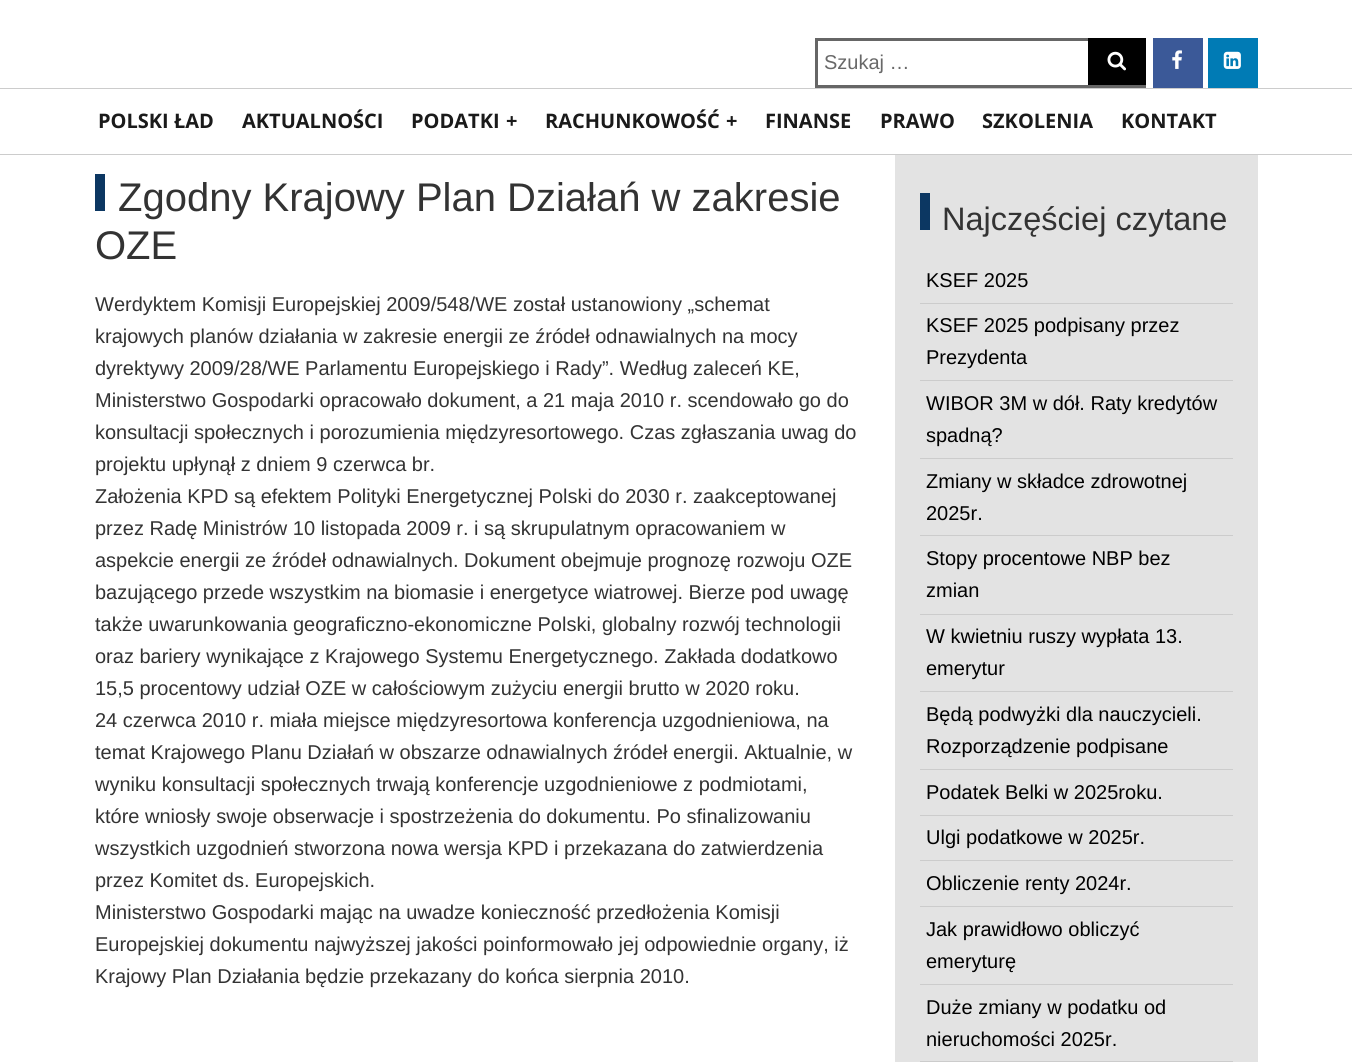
#include <cairo/cairo.h>
#include <math.h>
#include <stddef.h>

typedef struct { double x, y; const char *s; } line_t;
typedef struct { double x, y, w, h; unsigned color; } box_t;
static cairo_t *cr;

static void rgb(unsigned color)
{
	cairo_set_source_rgb(cr, (color >> 16) / 255.0, (color >> 8 & 255) / 255.0, (color & 255) / 255.0);
}

static void image(const char *path, double x, double y, double w, double h)
{
	cairo_surface_t *image = cairo_image_surface_create_from_png(path);
	cairo_save(cr);
	cairo_set_source_surface(cr, image, x, y);
	cairo_rectangle(cr, x, y, w, h);
	cairo_fill(cr);
	cairo_restore(cr);
	cairo_surface_destroy(image);
}

int main(void) {
	cairo_surface_t *surface = cairo_image_surface_create(CAIRO_FORMAT_RGB24, 1352, 1062);
	cr = cairo_create(surface);
	cairo_font_options_t *options = cairo_font_options_create();
	cairo_font_options_set_hint_metrics(options, CAIRO_HINT_METRICS_OFF);
	cairo_font_options_set_hint_style(options, CAIRO_HINT_STYLE_NONE);
	cairo_set_font_options(cr, options);
	cairo_set_miter_limit(cr, 4);
	rgb(0xffffff);
	cairo_paint(cr);
	rgb(0xcccccc);
	cairo_rectangle(cr, 0, 88, 1352, 1);
	cairo_fill(cr);
	cairo_rectangle(cr, 816.5, 39.5, 328, 47);
	rgb(0x666666);
	cairo_set_line_width(cr, 3);
	cairo_stroke(cr);
	rgb(0x000000);
	cairo_rectangle(cr, 1088, 38, 58, 47);
	cairo_fill(cr);
	image("img/1.png", 1107, 51, 19, 20);
	rgb(0x3b5998);
	cairo_rectangle(cr, 1153, 38, 50, 50);
	cairo_fill(cr);
	image("img/2.png", 1172, 50, 10, 19);
	rgb(0x007bb5);
	cairo_rectangle(cr, 1208, 38, 50, 50);
	cairo_fill(cr);
	image("img/3.png", 1223, 51, 18, 18);
	{
		static const box_t items[] = {
			{0, 154, 1352, 1, 0xcccccc},
			{95, 174, 10, 37, 0x0c3762},
			{895, 155, 363, 907, 0xe3e3e3},
			{920, 193, 10, 37, 0x0c3762},
			{920, 303, 313, 1, 0xcccccc},
			{920, 380, 313, 1, 0xcccccc},
			{920, 458, 313, 1, 0xcccccc},
			{920, 535, 313, 1, 0xcccccc},
			{920, 614, 313, 1, 0xcccccc},
			{920, 691, 313, 1, 0xcccccc},
			{920, 769, 313, 1, 0xcccccc},
			{920, 815, 313, 1, 0xcccccc},
			{920, 860, 313, 1, 0xcccccc},
			{920, 906, 313, 1, 0xcccccc},
			{920, 984, 313, 1, 0xcccccc},
			{920, 1061, 313, 1, 0xcccccc},
		};
		for (size_t i = 0; i < sizeof items / sizeof *items; i++) {
			rgb(items[i].color);
			cairo_rectangle(cr, items[i].x, items[i].y, items[i].w, items[i].h);
			cairo_fill(cr);
		}
	}
	cairo_select_font_face(cr, "Liberation Sans", CAIRO_FONT_SLANT_NORMAL, CAIRO_FONT_WEIGHT_NORMAL);
	cairo_set_font_size(cr, 20);
	rgb(0x686868);
	cairo_move_to(cr, 824, 69);
	cairo_show_text(cr, "Szukaj …");
	cairo_select_font_face(cr, "Open Sans", CAIRO_FONT_SLANT_NORMAL, CAIRO_FONT_WEIGHT_BOLD);
	rgb(0x1a1a1a);
	{
		static const line_t items[] = {
			{98, 128, "POLSKI ŁAD"},
			{242, 128, "AKTUALNOŚCI"},
			{411, 128, "PODATKI"},
			{506, 128, "+"},
			{545, 128, "RACHUNKOWOŚĆ"},
			{726, 128, "+"},
			{765, 128, "FINANSE"},
			{880, 128, "PRAWO"},
			{982, 128, "SZKOLENIA"},
			{1121, 128, "KONTAKT"},
		};
		for (size_t i = 0; i < sizeof items / sizeof *items; i++) {
			cairo_move_to(cr, items[i].x, items[i].y);
			cairo_show_text(cr, items[i].s);
		}
	}
	cairo_select_font_face(cr, "Liberation Sans", CAIRO_FONT_SLANT_NORMAL, CAIRO_FONT_WEIGHT_NORMAL);
	cairo_set_font_size(cr, 40);
	rgb(0x333333);
	cairo_move_to(cr, 118, 211);
	cairo_show_text(cr, "Zgodny Krajowy Plan Działań w zakresie");
	cairo_move_to(cr, 95, 259);
	cairo_show_text(cr, "OZE");
	cairo_set_font_size(cr, 20);
	{
		static const line_t items[] = {
			{95, 311, "Werdyktem Komisji Europejskiej 2009/548/WE został ustanowiony „schemat"},
			{95, 343, "krajowych planów działania w zakresie energii ze źródeł odnawialnych na mocy"},
			{95, 375, "dyrektywy 2009/28/WE Parlamentu Europejskiego i Rady”. Według zaleceń KE,"},
			{95, 407, "Ministerstwo Gospodarki opracowało dokument, a 21 maja 2010 r. scendowało go do"},
			{95, 439, "konsultacji społecznych i porozumienia międzyresortowego. Czas zgłaszania uwag do"},
			{95, 471, "projektu upłynął z dniem 9 czerwca br."},
			{95, 503, "Założenia KPD są efektem Polityki Energetycznej Polski do 2030 r. zaakceptowanej"},
			{95, 535, "przez Radę Ministrów 10 listopada 2009 r. i są skrupulatnym opracowaniem w"},
			{95, 567, "aspekcie energii ze źródeł odnawialnych. Dokument obejmuje prognozę rozwoju OZE"},
			{95, 599, "bazującego przede wszystkim na biomasie i energetyce wiatrowej. Bierze pod uwagę"},
			{95, 631, "także uwarunkowania geograficzno-ekonomiczne Polski, globalny rozwój technologii"},
			{95, 663, "oraz bariery wynikające z Krajowego Systemu Energetycznego. Zakłada dodatkowo"},
			{95, 695, "15,5 procentowy udział OZE w całościowym zużyciu energii brutto w 2020 roku."},
			{95, 727, "24 czerwca 2010 r. miała miejsce międzyresortowa konferencja uzgodnieniowa, na"},
			{95, 759, "temat Krajowego Planu Działań w obszarze odnawialnych źródeł energii. Aktualnie, w"},
			{95, 791, "wyniku konsultacji społecznych trwają konferencje uzgodnieniowe z podmiotami,"},
			{95, 823, "które wniosły swoje obserwacje i spostrzeżenia do dokumentu. Po sfinalizowaniu"},
			{95, 855, "wszystkich uzgodnień stworzona nowa wersja KPD i przekazana do zatwierdzenia"},
			{95, 887, "przez Komitet ds. Europejskich."},
			{95, 919, "Ministerstwo Gospodarki mając na uwadze konieczność przedłożenia Komisji"},
			{95, 951, "Europejskiej dokumentu najwyższej jakości poinformowało jej odpowiednie organy, iż"},
			{95, 983, "Krajowy Plan Działania będzie przekazany do końca sierpnia 2010."},
		};
		for (size_t i = 0; i < sizeof items / sizeof *items; i++) {
			cairo_move_to(cr, items[i].x, items[i].y);
			cairo_show_text(cr, items[i].s);
		}
	}
	cairo_set_font_size(cr, 32.5);
	cairo_move_to(cr, 942, 230);
	cairo_show_text(cr, "Najczęściej czytane");
	cairo_set_font_size(cr, 20);
	rgb(0x000000);
	{
		static const line_t items[] = {
			{926, 287, "KSEF 2025"},
			{926, 332, "KSEF 2025 podpisany przez"},
			{926, 364, "Prezydenta"},
			{926, 410, "WIBOR 3M w dół. Raty kredytów"},
			{926, 442, "spadną?"},
			{926, 488, "Zmiany w składce zdrowotnej"},
			{926, 520, "2025r."},
			{926, 565, "Stopy procentowe NBP bez"},
			{926, 597, "zmian"},
			{926, 643, "W kwietniu ruszy wypłata 13."},
			{926, 675, "emerytur"},
			{926, 721, "Będą podwyżki dla nauczycieli."},
			{926, 753, "Rozporządzenie podpisane"},
			{926, 799, "Podatek Belki w 2025roku."},
			{926, 844, "Ulgi podatkowe w 2025r."},
			{926, 890, "Obliczenie renty 2024r."},
			{926, 936, "Jak prawidłowo obliczyć"},
			{926, 968, "emeryturę"},
			{926, 1014, "Duże zmiany w podatku od"},
			{926, 1046, "nieruchomości 2025r."},
		};
		for (size_t i = 0; i < sizeof items / sizeof *items; i++) {
			cairo_move_to(cr, items[i].x, items[i].y);
			cairo_show_text(cr, items[i].s);
		}
	}
	cairo_surface_write_to_png(surface, "page.png");
	cairo_font_options_destroy(options);
	cairo_destroy(cr);
	cairo_surface_destroy(surface);
	return 0;
}
